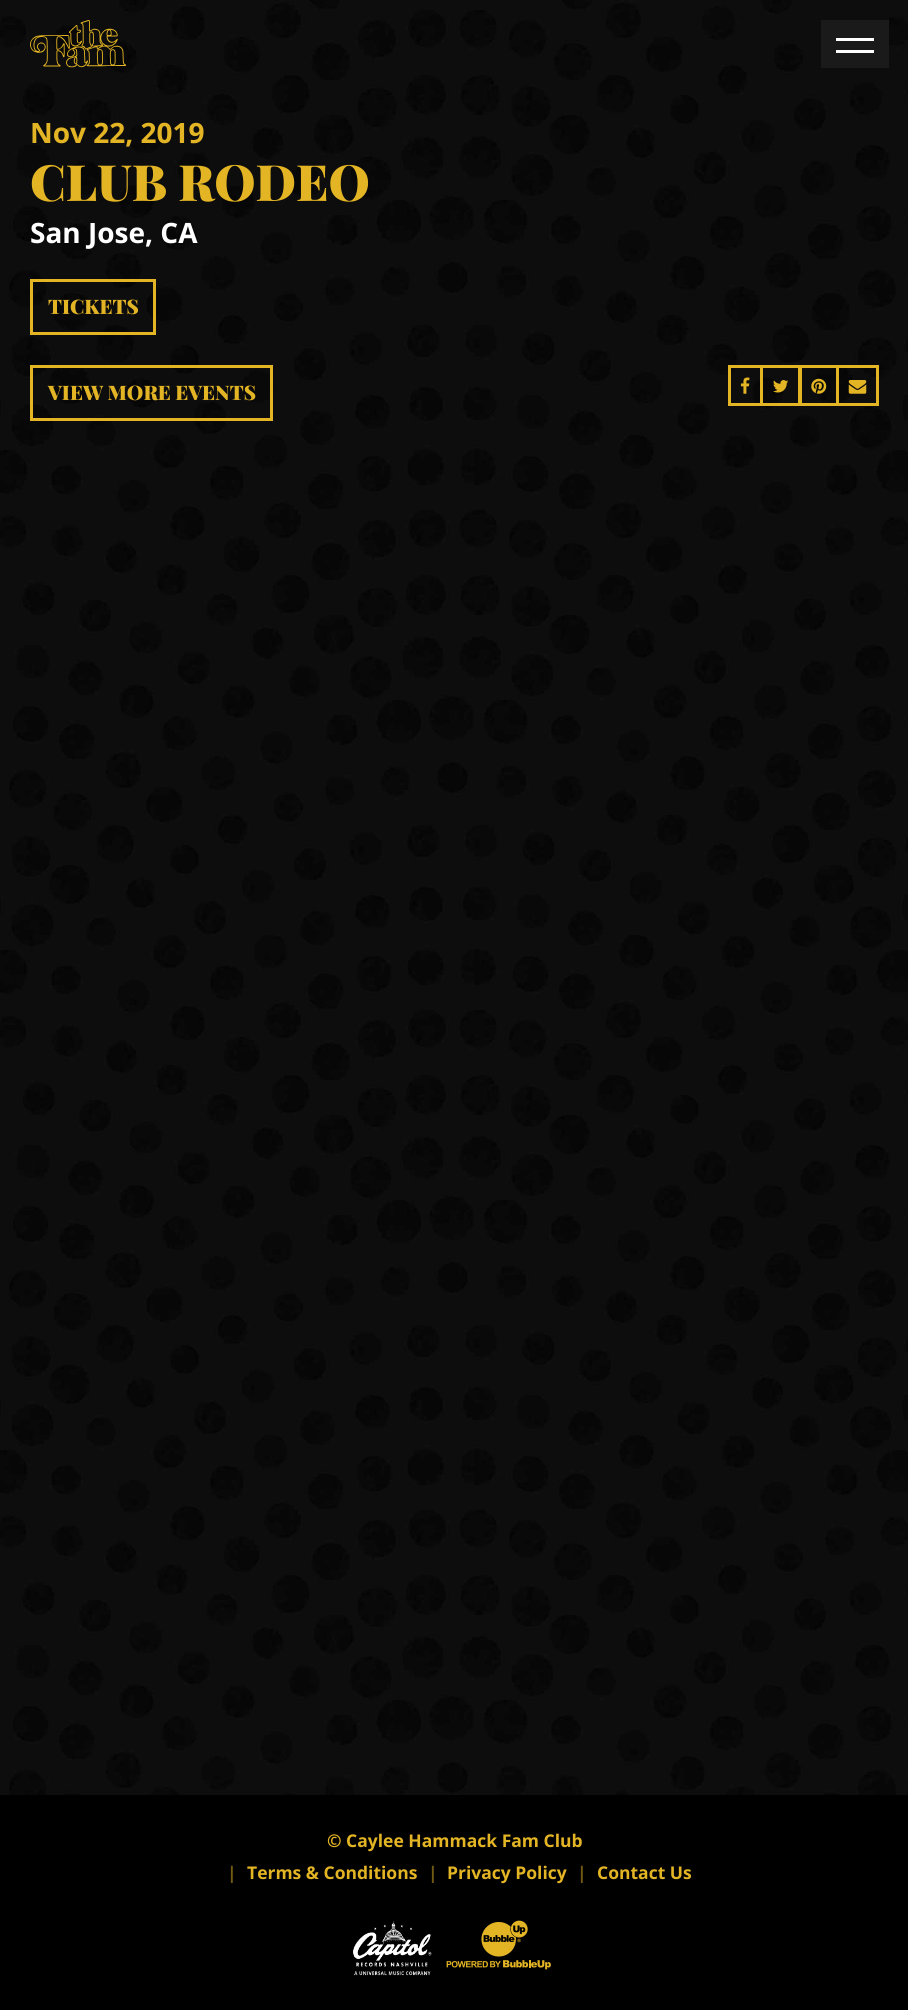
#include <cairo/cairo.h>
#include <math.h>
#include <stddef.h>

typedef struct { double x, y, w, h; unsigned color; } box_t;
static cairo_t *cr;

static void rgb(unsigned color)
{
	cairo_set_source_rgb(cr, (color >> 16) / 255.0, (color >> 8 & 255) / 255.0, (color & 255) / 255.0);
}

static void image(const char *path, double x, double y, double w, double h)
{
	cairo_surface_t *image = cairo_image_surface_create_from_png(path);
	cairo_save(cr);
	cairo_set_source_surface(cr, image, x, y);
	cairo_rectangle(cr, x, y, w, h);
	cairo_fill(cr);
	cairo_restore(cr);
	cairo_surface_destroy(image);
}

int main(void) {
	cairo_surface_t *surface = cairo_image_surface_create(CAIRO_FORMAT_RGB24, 908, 2010);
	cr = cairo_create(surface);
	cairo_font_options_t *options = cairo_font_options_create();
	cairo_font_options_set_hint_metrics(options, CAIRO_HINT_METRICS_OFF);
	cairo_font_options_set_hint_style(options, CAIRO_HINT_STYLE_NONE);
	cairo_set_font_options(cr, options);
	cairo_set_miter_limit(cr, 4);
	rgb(0xffffff);
	cairo_paint(cr);
	image("img/1.png", 0, 0, 908, 1795);
	image("img/2.png", 30, 20, 96, 48);
	{
		static const box_t items[] = {
			{821, 20, 68, 48, 0x1a1a1a},
			{836, 38, 38, 3, 0xffffff},
			{836, 50, 38, 3, 0xffffff},
		};
		for (size_t i = 0; i < sizeof items / sizeof *items; i++) {
			rgb(items[i].color);
			cairo_rectangle(cr, items[i].x, items[i].y, items[i].w, items[i].h);
			cairo_fill(cr);
		}
	}
	cairo_rectangle(cr, 31.5, 280.5, 123, 53);
	rgb(0xe3b424);
	cairo_set_line_width(cr, 3);
	cairo_stroke(cr);
	cairo_rectangle(cr, 31.5, 366.5, 240, 53);
	cairo_stroke(cr);
	cairo_rectangle(cr, 729.5, 366.5, 32, 38);
	cairo_stroke(cr);
	image("img/3.png", 740, 377, 10, 17);
	cairo_rectangle(cr, 761.5, 366.5, 38, 38);
	cairo_stroke(cr);
	image("img/4.png", 773, 380, 16, 13);
	cairo_rectangle(cr, 800.5, 366.5, 37, 38);
	cairo_stroke(cr);
	image("img/5.png", 811, 378, 16, 16);
	cairo_rectangle(cr, 837.5, 366.5, 40, 38);
	cairo_stroke(cr);
	image("img/6.png", 848, 380, 19, 14);
	rgb(0x000000);
	cairo_rectangle(cr, 0, 1795, 908, 215);
	cairo_fill(cr);
	image("img/7.png", 353, 1920, 79, 56);
	image("img/8.png", 446, 1920, 105, 50);
	cairo_select_font_face(cr, "Open Sans", CAIRO_FONT_SLANT_NORMAL, CAIRO_FONT_WEIGHT_BOLD);
	cairo_set_font_size(cr, 28);
	rgb(0xe3b424);
	cairo_move_to(cr, 30, 143);
	cairo_show_text(cr, "Nov 22, 2019");
	cairo_select_font_face(cr, "Playfair Display Black", CAIRO_FONT_SLANT_NORMAL, CAIRO_FONT_WEIGHT_NORMAL);
	cairo_set_font_size(cr, 50);
	cairo_move_to(cr, 30, 201);
	cairo_show_text(cr, "CLUB RODEO");
	cairo_select_font_face(cr, "Open Sans", CAIRO_FONT_SLANT_NORMAL, CAIRO_FONT_WEIGHT_BOLD);
	cairo_set_font_size(cr, 28);
	rgb(0xffffff);
	cairo_move_to(cr, 30, 243);
	cairo_show_text(cr, "San Jose, CA");
	cairo_select_font_face(cr, "Playfair Display Black", CAIRO_FONT_SLANT_NORMAL, CAIRO_FONT_WEIGHT_NORMAL);
	cairo_set_font_size(cr, 20);
	rgb(0xe3b424);
	cairo_move_to(cr, 48, 314);
	cairo_show_text(cr, "TICKETS");
	cairo_move_to(cr, 48, 400);
	cairo_show_text(cr, "VIEW MORE EVENTS");
	cairo_select_font_face(cr, "Open Sans", CAIRO_FONT_SLANT_NORMAL, CAIRO_FONT_WEIGHT_BOLD);
	cairo_set_font_size(cr, 17.5);
	cairo_move_to(cr, 327, 1847);
	cairo_show_text(cr, "© Caylee Hammack Fam Club");
	rgb(0x725a12);
	cairo_move_to(cr, 227, 1879);
	cairo_show_text(cr, "|");
	rgb(0xe3b424);
	cairo_move_to(cr, 247, 1879);
	cairo_show_text(cr, "Terms & Conditions");
	rgb(0x725a12);
	cairo_move_to(cr, 428, 1879);
	cairo_show_text(cr, "|");
	rgb(0xe3b424);
	cairo_move_to(cr, 447, 1879);
	cairo_show_text(cr, "Privacy Policy");
	rgb(0x725a12);
	cairo_move_to(cr, 577, 1879);
	cairo_show_text(cr, "|");
	rgb(0xe3b424);
	cairo_move_to(cr, 597, 1879);
	cairo_show_text(cr, "Contact Us");
	cairo_surface_write_to_png(surface, "page.png");
	cairo_font_options_destroy(options);
	cairo_destroy(cr);
	cairo_surface_destroy(surface);
	return 0;
}
